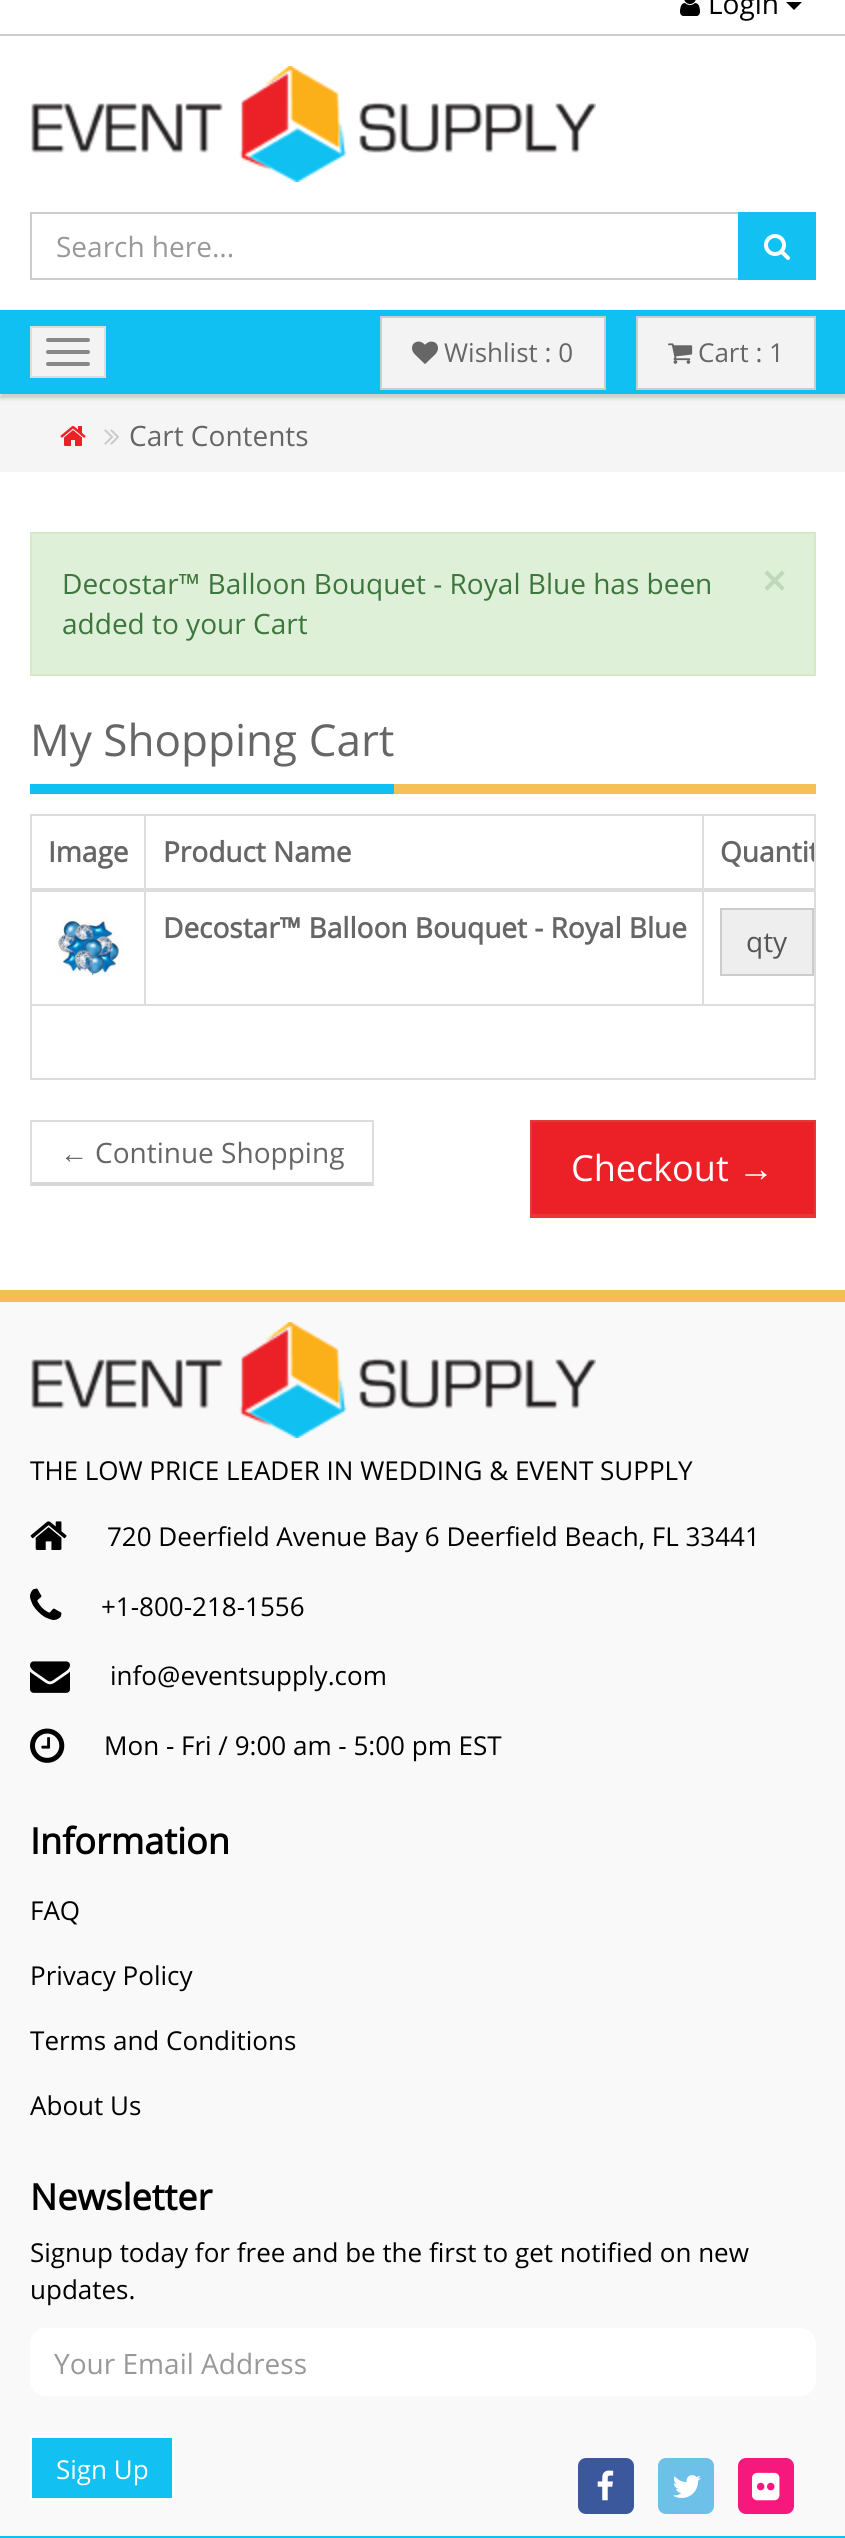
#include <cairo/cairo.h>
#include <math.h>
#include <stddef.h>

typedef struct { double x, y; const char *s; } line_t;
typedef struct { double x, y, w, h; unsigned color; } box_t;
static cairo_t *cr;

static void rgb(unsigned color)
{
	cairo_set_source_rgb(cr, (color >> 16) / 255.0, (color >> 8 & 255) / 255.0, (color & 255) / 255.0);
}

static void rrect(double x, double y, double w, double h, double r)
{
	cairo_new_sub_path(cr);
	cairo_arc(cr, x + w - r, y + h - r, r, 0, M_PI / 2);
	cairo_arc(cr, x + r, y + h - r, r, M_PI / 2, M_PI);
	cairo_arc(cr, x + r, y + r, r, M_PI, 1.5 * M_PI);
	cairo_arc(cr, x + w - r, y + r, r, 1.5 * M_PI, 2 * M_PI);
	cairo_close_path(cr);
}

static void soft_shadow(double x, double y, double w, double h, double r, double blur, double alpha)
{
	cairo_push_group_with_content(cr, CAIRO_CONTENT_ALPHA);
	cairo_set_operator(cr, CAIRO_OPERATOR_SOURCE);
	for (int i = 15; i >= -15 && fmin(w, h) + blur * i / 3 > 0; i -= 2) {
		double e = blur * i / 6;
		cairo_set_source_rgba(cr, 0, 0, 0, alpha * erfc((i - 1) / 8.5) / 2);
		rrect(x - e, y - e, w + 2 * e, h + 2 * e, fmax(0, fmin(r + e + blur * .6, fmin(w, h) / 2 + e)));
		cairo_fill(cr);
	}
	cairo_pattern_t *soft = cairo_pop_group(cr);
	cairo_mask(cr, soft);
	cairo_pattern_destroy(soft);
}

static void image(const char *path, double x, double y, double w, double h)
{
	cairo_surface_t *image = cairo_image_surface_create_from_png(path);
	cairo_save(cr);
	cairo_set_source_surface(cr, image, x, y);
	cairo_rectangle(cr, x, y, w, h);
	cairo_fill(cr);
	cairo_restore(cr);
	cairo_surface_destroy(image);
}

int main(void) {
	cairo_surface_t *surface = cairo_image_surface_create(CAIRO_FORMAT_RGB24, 845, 2538);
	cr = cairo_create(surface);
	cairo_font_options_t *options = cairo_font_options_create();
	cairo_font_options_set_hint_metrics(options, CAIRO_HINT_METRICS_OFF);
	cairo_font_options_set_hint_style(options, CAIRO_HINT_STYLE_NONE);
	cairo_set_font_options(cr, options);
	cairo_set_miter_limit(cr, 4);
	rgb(0xffffff);
	cairo_paint(cr);
	rgb(0xcccccc);
	cairo_rectangle(cr, 0, 34, 845, 2);
	cairo_fill(cr);
	image("img/1.png", 680, 0, 20, 16);
	rgb(0x000000);
	cairo_new_path(cr);
	cairo_move_to(cr, 786, 2);
	cairo_line_to(cr, 802, 2);
	cairo_line_to(cr, 794, 10);
	cairo_close_path(cr);
	cairo_fill(cr);
	image("img/2.png", 31, 66, 565, 116);
	cairo_rectangle(cr, 31, 213, 708, 66);
	rgb(0xcccccc);
	cairo_stroke(cr);
	rgb(0x12c0f1);
	cairo_rectangle(cr, 738, 212, 78, 68);
	cairo_fill(cr);
	image("img/3.png", 764, 234, 26, 26);
	rgb(0xf5f5f5);
	cairo_rectangle(cr, 0, 396, 845, 76);
	cairo_fill(cr);
	rgb(0x000000);
	soft_shadow(0, 314, 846, 84, 0, 2, 0.2);
	rgb(0x11c0f2);
	cairo_rectangle(cr, 0, 310, 845, 84);
	cairo_fill(cr);
	rgb(0xf3f3f3);
	cairo_rectangle(cr, 31, 327, 74, 50);
	cairo_fill_preserve(cr);
	rgb(0xdddddd);
	cairo_stroke(cr);
	rgb(0x888888);
	rrect(46, 338, 44, 4, 2);
	cairo_fill(cr);
	rrect(46, 350, 44, 4, 2);
	cairo_fill(cr);
	rrect(46, 362, 44, 4, 2);
	cairo_fill(cr);
	rgb(0xf3f3f3);
	cairo_rectangle(cr, 381, 317, 224, 72);
	cairo_fill_preserve(cr);
	rgb(0xcccccc);
	cairo_stroke(cr);
	image("img/4.png", 412, 341, 26, 23);
	rgb(0xf3f3f3);
	cairo_rectangle(cr, 637, 317, 178, 72);
	cairo_fill_preserve(cr);
	rgb(0xcccccc);
	cairo_stroke(cr);
	image("img/5.png", 668, 343, 25, 21);
	image("img/6.png", 60, 426, 26, 20);
	image("img/7.png", 104, 429, 15, 16);
	rgb(0xdff0d8);
	cairo_rectangle(cr, 31, 533, 784, 142);
	cairo_fill_preserve(cr);
	rgb(0xd6e9c6);
	cairo_stroke(cr);
	rgb(0xf6c056);
	cairo_rectangle(cr, 394, 784, 422, 10);
	cairo_fill(cr);
	rgb(0x11c0f2);
	cairo_rectangle(cr, 30, 784, 364, 10);
	cairo_fill(cr);
	cairo_rectangle(cr, 31, 815, 784, 264);
	rgb(0xdddddd);
	cairo_stroke(cr);
	{
		static const box_t items[] = {
			{32, 1004, 782, 2, 0xdddddd},
			{144, 816, 2, 190, 0xdddddd},
			{702, 816, 2, 190, 0xdddddd},
			{32, 888, 782, 4, 0xdddddd},
		};
		for (size_t i = 0; i < sizeof items / sizeof *items; i++) {
			rgb(items[i].color);
			cairo_rectangle(cr, items[i].x, items[i].y, items[i].w, items[i].h);
			cairo_fill(cr);
		}
	}
	image("img/8.png", 55, 915, 68, 61);
	{
		static const box_t items[] = {
			{722, 910, 90, 64, 0xeeeeee},
			{720, 908, 92, 2, 0xcccccc},
			{720, 974, 92, 2, 0xcccccc},
			{720, 908, 2, 68, 0xcccccc},
		};
		for (size_t i = 0; i < sizeof items / sizeof *items; i++) {
			rgb(items[i].color);
			cairo_rectangle(cr, items[i].x, items[i].y, items[i].w, items[i].h);
			cairo_fill(cr);
		}
	}
	cairo_save(cr);
	cairo_rectangle(cr, 32, 816, 782, 262);
	cairo_clip(cr);
	cairo_rectangle(cr, 813, 909, 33, 66);
	cairo_stroke(cr);
	cairo_restore(cr);
	rgb(0xdddddd);
	cairo_rectangle(cr, 30, 1120, 344, 2);
	cairo_fill(cr);
	cairo_new_path(cr);
	cairo_move_to(cr, 374, 1120);
	cairo_line_to(cr, 374, 1186);
	cairo_line_to(cr, 372, 1182);
	cairo_line_to(cr, 372, 1122);
	cairo_close_path(cr);
	cairo_fill(cr);
	rgb(0xd6d8d9);
	cairo_new_path(cr);
	cairo_move_to(cr, 374, 1186);
	cairo_line_to(cr, 30, 1186);
	cairo_line_to(cr, 32, 1182);
	cairo_line_to(cr, 372, 1182);
	cairo_close_path(cr);
	cairo_fill(cr);
	rgb(0xdddddd);
	cairo_new_path(cr);
	cairo_move_to(cr, 30, 1186);
	cairo_line_to(cr, 30, 1120);
	cairo_line_to(cr, 32, 1122);
	cairo_line_to(cr, 32, 1182);
	cairo_close_path(cr);
	cairo_fill(cr);
	{
		static const box_t items[] = {
			{532, 1122, 282, 92, 0xec2127},
			{530, 1120, 286, 2, 0xe53935},
			{814, 1120, 2, 98, 0xe53935},
			{530, 1214, 286, 4, 0xe53935},
			{530, 1120, 2, 98, 0xe53935},
			{0, 1302, 845, 1234, 0xf9f9f9},
			{0, 1290, 845, 12, 0xf4be54},
		};
		for (size_t i = 0; i < sizeof items / sizeof *items; i++) {
			rgb(items[i].color);
			cairo_rectangle(cr, items[i].x, items[i].y, items[i].w, items[i].h);
			cairo_fill(cr);
		}
	}
	image("img/9.png", 31, 1322, 565, 116);
	image("img/10.png", 30, 1521, 37, 29);
	image("img/11.png", 30, 1588, 32, 32);
	image("img/12.png", 30, 1661, 40, 32);
	image("img/13.png", 30, 1728, 35, 35);
	rgb(0xffffff);
	rrect(30, 2328, 786, 68, 16);
	cairo_fill(cr);
	rgb(0x12c0f1);
	cairo_rectangle(cr, 31, 2437, 142, 62);
	cairo_fill_preserve(cr);
	rgb(0xffffff);
	cairo_stroke(cr);
	rgb(0x3b589c);
	rrect(577, 2457, 58, 58, 9);
	cairo_fill_preserve(cr);
	rgb(0xf9f9f9);
	cairo_stroke(cr);
	image("img/14.png", 597, 2470, 17, 31);
	rgb(0x6dc0e8);
	rrect(657, 2457, 58, 58, 9);
	cairo_fill_preserve(cr);
	rgb(0xf9f9f9);
	cairo_stroke(cr);
	image("img/15.png", 673, 2475, 28, 23);
	rgb(0xf7187d);
	rrect(737, 2457, 58, 58, 9);
	cairo_fill_preserve(cr);
	rgb(0xf9f9f9);
	cairo_stroke(cr);
	image("img/16.png", 752, 2472, 28, 29);
	rgb(0x11c0f2);
	cairo_rectangle(cr, 0, 2536, 845, 2);
	cairo_fill(cr);
	cairo_select_font_face(cr, "Open Sans", CAIRO_FONT_SLANT_NORMAL, CAIRO_FONT_WEIGHT_NORMAL);
	cairo_set_font_size(cr, 28);
	rgb(0x000000);
	cairo_move_to(cr, 708, 14);
	cairo_show_text(cr, "Login");
	rgb(0x999999);
	cairo_move_to(cr, 56, 257);
	cairo_show_text(cr, "Search here...");
	cairo_set_font_size(cr, 26);
	rgb(0x666666);
	cairo_move_to(cr, 444, 362);
	cairo_show_text(cr, "Wishlist : 0");
	cairo_move_to(cr, 698, 362);
	cairo_show_text(cr, "Cart : 1");
	cairo_set_font_size(cr, 28);
	cairo_move_to(cr, 129, 446);
	cairo_show_text(cr, "Cart Contents");
	rgb(0x3c763d);
	cairo_move_to(cr, 62, 594);
	cairo_show_text(cr, "Decostar™ Balloon Bouquet - Royal Blue has been");
	cairo_select_font_face(cr, "Open Sans", CAIRO_FONT_SLANT_NORMAL, CAIRO_FONT_WEIGHT_BOLD);
	cairo_set_font_size(cr, 42);
	rgb(0xbed8b9);
	cairo_move_to(cr, 762, 596);
	cairo_show_text(cr, "×");
	cairo_select_font_face(cr, "Open Sans", CAIRO_FONT_SLANT_NORMAL, CAIRO_FONT_WEIGHT_NORMAL);
	cairo_set_font_size(cr, 28);
	rgb(0x3c763d);
	cairo_move_to(cr, 62, 634);
	cairo_show_text(cr, "added to your Cart");
	cairo_set_font_size(cr, 44);
	rgb(0x666666);
	cairo_move_to(cr, 30, 756);
	cairo_show_text(cr, "My Shopping Cart");
	cairo_select_font_face(cr, "Open Sans", CAIRO_FONT_SLANT_NORMAL, CAIRO_FONT_WEIGHT_BOLD);
	cairo_set_font_size(cr, 28);
	cairo_move_to(cr, 48, 862);
	cairo_show_text(cr, "Image");
	cairo_move_to(cr, 163, 862);
	cairo_show_text(cr, "Product Name");
	cairo_save(cr);
	cairo_rectangle(cr, 32, 816, 782, 262);
	cairo_clip(cr);
	cairo_move_to(cr, 720, 862);
	cairo_show_text(cr, "Quantit");
	cairo_restore(cr);
	cairo_move_to(cr, 163, 938);
	cairo_show_text(cr, "Decostar™ Balloon Bouquet - Royal Blue");
	cairo_select_font_face(cr, "Open Sans", CAIRO_FONT_SLANT_NORMAL, CAIRO_FONT_WEIGHT_NORMAL);
	rgb(0x555555);
	cairo_move_to(cr, 746, 952);
	cairo_show_text(cr, "qty");
	cairo_select_font_face(cr, "Liberation Serif", CAIRO_FONT_SLANT_NORMAL, CAIRO_FONT_WEIGHT_NORMAL);
	rgb(0x666666);
	cairo_move_to(cr, 60, 1163);
	cairo_show_text(cr, "←");
	cairo_select_font_face(cr, "Open Sans", CAIRO_FONT_SLANT_NORMAL, CAIRO_FONT_WEIGHT_NORMAL);
	cairo_move_to(cr, 95, 1163);
	cairo_show_text(cr, "Continue Shopping");
	cairo_set_font_size(cr, 36);
	rgb(0xffffff);
	cairo_move_to(cr, 571, 1181);
	cairo_show_text(cr, "Checkout");
	cairo_select_font_face(cr, "Liberation Serif", CAIRO_FONT_SLANT_NORMAL, CAIRO_FONT_WEIGHT_NORMAL);
	cairo_move_to(cr, 738, 1181);
	cairo_show_text(cr, "→");
	cairo_select_font_face(cr, "Open Sans", CAIRO_FONT_SLANT_NORMAL, CAIRO_FONT_WEIGHT_NORMAL);
	cairo_set_font_size(cr, 26);
	rgb(0x000000);
	{
		static const line_t items[] = {
			{30, 1480, "THE LOW PRICE LEADER IN WEDDING & EVENT SUPPLY"},
			{107, 1546, "720 Deerfield Avenue Bay 6 Deerfield Beach, FL 33441"},
			{101, 1616, "+1-800-218-1556"},
			{110, 1685, "info@eventsupply.com"},
			{104, 1755, "Mon - Fri / 9:00 am - 5:00 pm EST"},
		};
		for (size_t i = 0; i < sizeof items / sizeof *items; i++) {
			cairo_move_to(cr, items[i].x, items[i].y);
			cairo_show_text(cr, items[i].s);
		}
	}
	cairo_select_font_face(cr, "Open Sans", CAIRO_FONT_SLANT_NORMAL, CAIRO_FONT_WEIGHT_BOLD);
	cairo_set_font_size(cr, 36);
	cairo_move_to(cr, 30, 1854);
	cairo_show_text(cr, "Information");
	cairo_select_font_face(cr, "Open Sans", CAIRO_FONT_SLANT_NORMAL, CAIRO_FONT_WEIGHT_NORMAL);
	cairo_set_font_size(cr, 26);
	{
		static const line_t items[] = {
			{30, 1920, "FAQ"},
			{30, 1985, "Privacy Policy"},
			{30, 2050, "Terms and Conditions"},
			{30, 2115, "About Us"},
		};
		for (size_t i = 0; i < sizeof items / sizeof *items; i++) {
			cairo_move_to(cr, items[i].x, items[i].y);
			cairo_show_text(cr, items[i].s);
		}
	}
	cairo_select_font_face(cr, "Open Sans", CAIRO_FONT_SLANT_NORMAL, CAIRO_FONT_WEIGHT_BOLD);
	cairo_set_font_size(cr, 36);
	cairo_move_to(cr, 30, 2210);
	cairo_show_text(cr, "Newsletter");
	cairo_select_font_face(cr, "Open Sans", CAIRO_FONT_SLANT_NORMAL, CAIRO_FONT_WEIGHT_NORMAL);
	cairo_set_font_size(cr, 26);
	cairo_move_to(cr, 30, 2262);
	cairo_show_text(cr, "Signup today for free and be the first to get notified on new");
	cairo_move_to(cr, 30, 2299);
	cairo_show_text(cr, "updates.");
	cairo_set_font_size(cr, 28);
	rgb(0x999999);
	cairo_move_to(cr, 54, 2374);
	cairo_show_text(cr, "Your Email Address");
	cairo_set_font_size(cr, 26);
	rgb(0xffffff);
	cairo_move_to(cr, 56, 2479);
	cairo_show_text(cr, "Sign Up");
	cairo_surface_write_to_png(surface, "page.png");
	cairo_font_options_destroy(options);
	cairo_destroy(cr);
	cairo_surface_destroy(surface);
	return 0;
}
